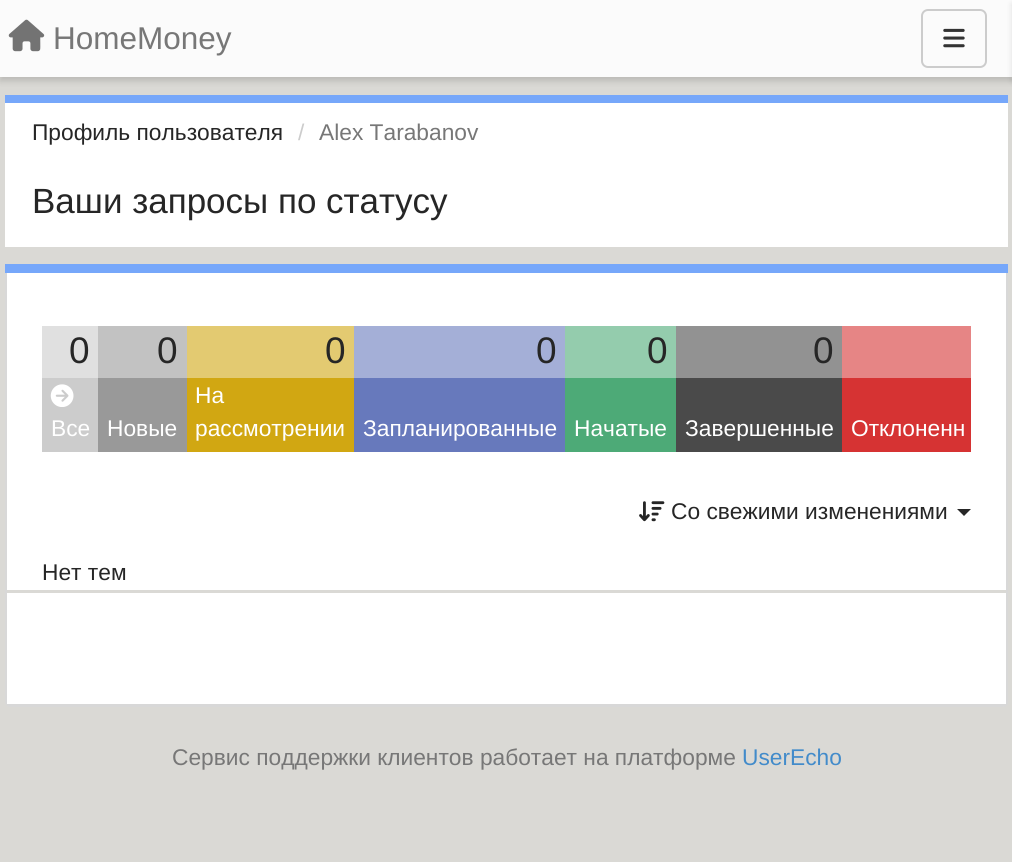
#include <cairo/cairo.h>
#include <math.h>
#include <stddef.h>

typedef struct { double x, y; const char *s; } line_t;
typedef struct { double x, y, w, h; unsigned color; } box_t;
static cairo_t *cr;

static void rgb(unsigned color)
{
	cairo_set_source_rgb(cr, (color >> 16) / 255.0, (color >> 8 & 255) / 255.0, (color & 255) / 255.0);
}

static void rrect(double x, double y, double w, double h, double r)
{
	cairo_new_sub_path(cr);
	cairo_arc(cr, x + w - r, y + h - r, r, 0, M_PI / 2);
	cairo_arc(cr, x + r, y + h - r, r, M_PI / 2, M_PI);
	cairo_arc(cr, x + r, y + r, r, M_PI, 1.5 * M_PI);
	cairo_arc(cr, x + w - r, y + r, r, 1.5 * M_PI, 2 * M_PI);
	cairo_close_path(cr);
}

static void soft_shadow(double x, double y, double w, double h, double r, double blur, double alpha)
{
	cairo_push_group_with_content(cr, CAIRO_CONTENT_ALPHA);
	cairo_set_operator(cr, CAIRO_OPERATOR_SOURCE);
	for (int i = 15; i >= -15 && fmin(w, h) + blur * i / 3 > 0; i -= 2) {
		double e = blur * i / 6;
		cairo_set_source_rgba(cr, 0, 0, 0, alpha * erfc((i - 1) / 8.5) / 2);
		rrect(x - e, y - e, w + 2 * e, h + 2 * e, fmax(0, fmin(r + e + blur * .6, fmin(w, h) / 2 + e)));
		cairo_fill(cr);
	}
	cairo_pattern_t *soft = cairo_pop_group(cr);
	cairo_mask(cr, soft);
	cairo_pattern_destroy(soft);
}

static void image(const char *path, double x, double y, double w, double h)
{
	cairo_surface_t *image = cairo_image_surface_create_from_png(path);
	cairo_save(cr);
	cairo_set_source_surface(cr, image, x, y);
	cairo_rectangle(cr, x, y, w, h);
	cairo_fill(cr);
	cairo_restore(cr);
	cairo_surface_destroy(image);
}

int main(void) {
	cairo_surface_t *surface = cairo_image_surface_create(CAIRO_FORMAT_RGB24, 1012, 862);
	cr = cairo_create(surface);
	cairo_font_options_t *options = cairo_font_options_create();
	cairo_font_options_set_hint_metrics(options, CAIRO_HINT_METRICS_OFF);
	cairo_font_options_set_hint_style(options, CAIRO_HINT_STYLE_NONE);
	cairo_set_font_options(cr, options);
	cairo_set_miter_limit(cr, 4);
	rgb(0xdad9d5);
	cairo_paint(cr);
	rgb(0x000000);
	soft_shadow(0, 4, 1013, 77, 0, 3.5, 0.15);
	rgb(0xfbfbfb);
	cairo_rectangle(cr, 0, 0, 1012, 77);
	cairo_fill(cr);
	image("img/1.png", 8, 19, 37, 33);
	rrect(922, 10, 64, 57, 6);
	rgb(0xcccccc);
	cairo_stroke(cr);
	image("img/2.png", 943, 28, 22, 20);
	rgb(0x000000);
	soft_shadow(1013, 4, 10, 77, 0, 3.5, 0.15);
	{
		static const box_t items[] = {
			{5, 103, 1003, 144, 0xffffff},
			{5, 95, 1003, 8, 0x76a7fa},
			{5, 264, 1003, 9, 0x76a7fa},
		};
		for (size_t i = 0; i < sizeof items / sizeof *items; i++) {
			rgb(items[i].color);
			cairo_rectangle(cr, items[i].x, items[i].y, items[i].w, items[i].h);
			cairo_fill(cr);
		}
	}
	rgb(0xd8d8d8);
	cairo_set_fill_rule(cr, CAIRO_FILL_RULE_EVEN_ODD);
	cairo_new_path(cr);
	cairo_move_to(cr, 5, 273);
	cairo_line_to(cr, 1008, 273);
	cairo_line_to(cr, 1008, 702);
	cairo_curve_to(cr, 1008, 705, 1006, 707, 1003, 707);
	cairo_line_to(cr, 10, 707);
	cairo_curve_to(cr, 8, 707, 5, 705, 5, 702);
	cairo_close_path(cr);
	cairo_move_to(cr, 7, 273);
	cairo_line_to(cr, 1006, 273);
	cairo_line_to(cr, 1006, 702);
	cairo_curve_to(cr, 1006, 703, 1005, 704, 1003, 704);
	cairo_line_to(cr, 10, 704);
	cairo_curve_to(cr, 9, 704, 7, 703, 7, 702);
	cairo_close_path(cr);
	cairo_fill(cr);
	{
		static const box_t items[] = {
			{7, 273, 999, 317, 0xffffff},
			{42, 326, 56, 52, 0xe0e0e0},
			{98, 326, 89, 52, 0xc2c2c2},
			{187, 326, 167, 52, 0xe3ca71},
			{354, 326, 211, 52, 0xa4afd7},
			{565, 326, 111, 52, 0x94ccad},
			{676, 326, 166, 52, 0x929292},
			{842, 326, 129, 52, 0xe68585},
			{42, 378, 56, 74, 0xcccccc},
		};
		for (size_t i = 0; i < sizeof items / sizeof *items; i++) {
			rgb(items[i].color);
			cairo_rectangle(cr, items[i].x, items[i].y, items[i].w, items[i].h);
			cairo_fill(cr);
		}
	}
	image("img/3.png", 50, 384, 24, 23);
	{
		static const box_t items[] = {
			{98, 378, 89, 74, 0x999999},
			{187, 378, 167, 74, 0xd1a712},
			{354, 378, 211, 74, 0x6779bc},
			{565, 378, 111, 74, 0x4daa77},
			{676, 378, 166, 74, 0x4a4a4a},
			{842, 378, 129, 74, 0xd63333},
		};
		for (size_t i = 0; i < sizeof items / sizeof *items; i++) {
			rgb(items[i].color);
			cairo_rectangle(cr, items[i].x, items[i].y, items[i].w, items[i].h);
			cairo_fill(cr);
		}
	}
	image("img/4.png", 639, 501, 26, 21);
	rgb(0x262626);
	cairo_set_fill_rule(cr, CAIRO_FILL_RULE_WINDING);
	cairo_new_path(cr);
	cairo_move_to(cr, 957, 509);
	cairo_line_to(cr, 971, 509);
	cairo_line_to(cr, 964, 516);
	cairo_close_path(cr);
	cairo_fill(cr);
	rgb(0xffffff);
	cairo_rectangle(cr, 7, 593, 999, 111);
	cairo_fill(cr);
	cairo_select_font_face(cr, "Liberation Sans", CAIRO_FONT_SLANT_NORMAL, CAIRO_FONT_WEIGHT_NORMAL);
	cairo_set_font_size(cr, 31.5);
	rgb(0x777777);
	cairo_move_to(cr, 53, 49);
	cairo_show_text(cr, "HomeMoney");
	cairo_set_font_size(cr, 22.75);
	rgb(0x262626);
	cairo_move_to(cr, 32, 140);
	cairo_show_text(cr, "Профиль пользователя");
	rgb(0xcccccc);
	cairo_move_to(cr, 298, 140);
	cairo_show_text(cr, "/");
	rgb(0x777777);
	cairo_move_to(cr, 319, 140);
	cairo_show_text(cr, "Alex Tarabanov");
	cairo_set_font_size(cr, 35);
	rgb(0x262626);
	cairo_move_to(cr, 32, 213);
	cairo_show_text(cr, "Ваши запросы по статусу");
	cairo_set_font_size(cr, 37);
	{
		static const line_t items[] = {
			{69, 363, "0"},
			{157, 363, "0"},
			{325, 363, "0"},
			{536, 363, "0"},
			{647, 363, "0"},
			{813, 363, "0"},
		};
		for (size_t i = 0; i < sizeof items / sizeof *items; i++) {
			cairo_move_to(cr, items[i].x, items[i].y);
			cairo_show_text(cr, items[i].s);
		}
	}
	cairo_set_font_size(cr, 22.75);
	rgb(0xffffff);
	{
		static const line_t items[] = {
			{51, 436, "Все"},
			{107, 436, "Новые"},
			{195, 403, "На"},
			{195, 436, "рассмотрении"},
			{363, 436, "Запланированные"},
			{574, 436, "Начатые"},
			{685, 436, "Завершенные"},
			{851, 436, "Отклоненн"},
		};
		for (size_t i = 0; i < sizeof items / sizeof *items; i++) {
			cairo_move_to(cr, items[i].x, items[i].y);
			cairo_show_text(cr, items[i].s);
		}
	}
	rgb(0x262626);
	cairo_move_to(cr, 671, 519);
	cairo_show_text(cr, "Со свежими изменениями");
	cairo_move_to(cr, 42, 580);
	cairo_show_text(cr, "Нет тем");
	rgb(0x777777);
	cairo_move_to(cr, 172, 765);
	cairo_show_text(cr, "Сервис поддержки клиентов работает на платформе");
	rgb(0x428bca);
	cairo_move_to(cr, 742, 765);
	cairo_show_text(cr, "UserEcho");
	cairo_surface_write_to_png(surface, "page.png");
	cairo_font_options_destroy(options);
	cairo_destroy(cr);
	cairo_surface_destroy(surface);
	return 0;
}
